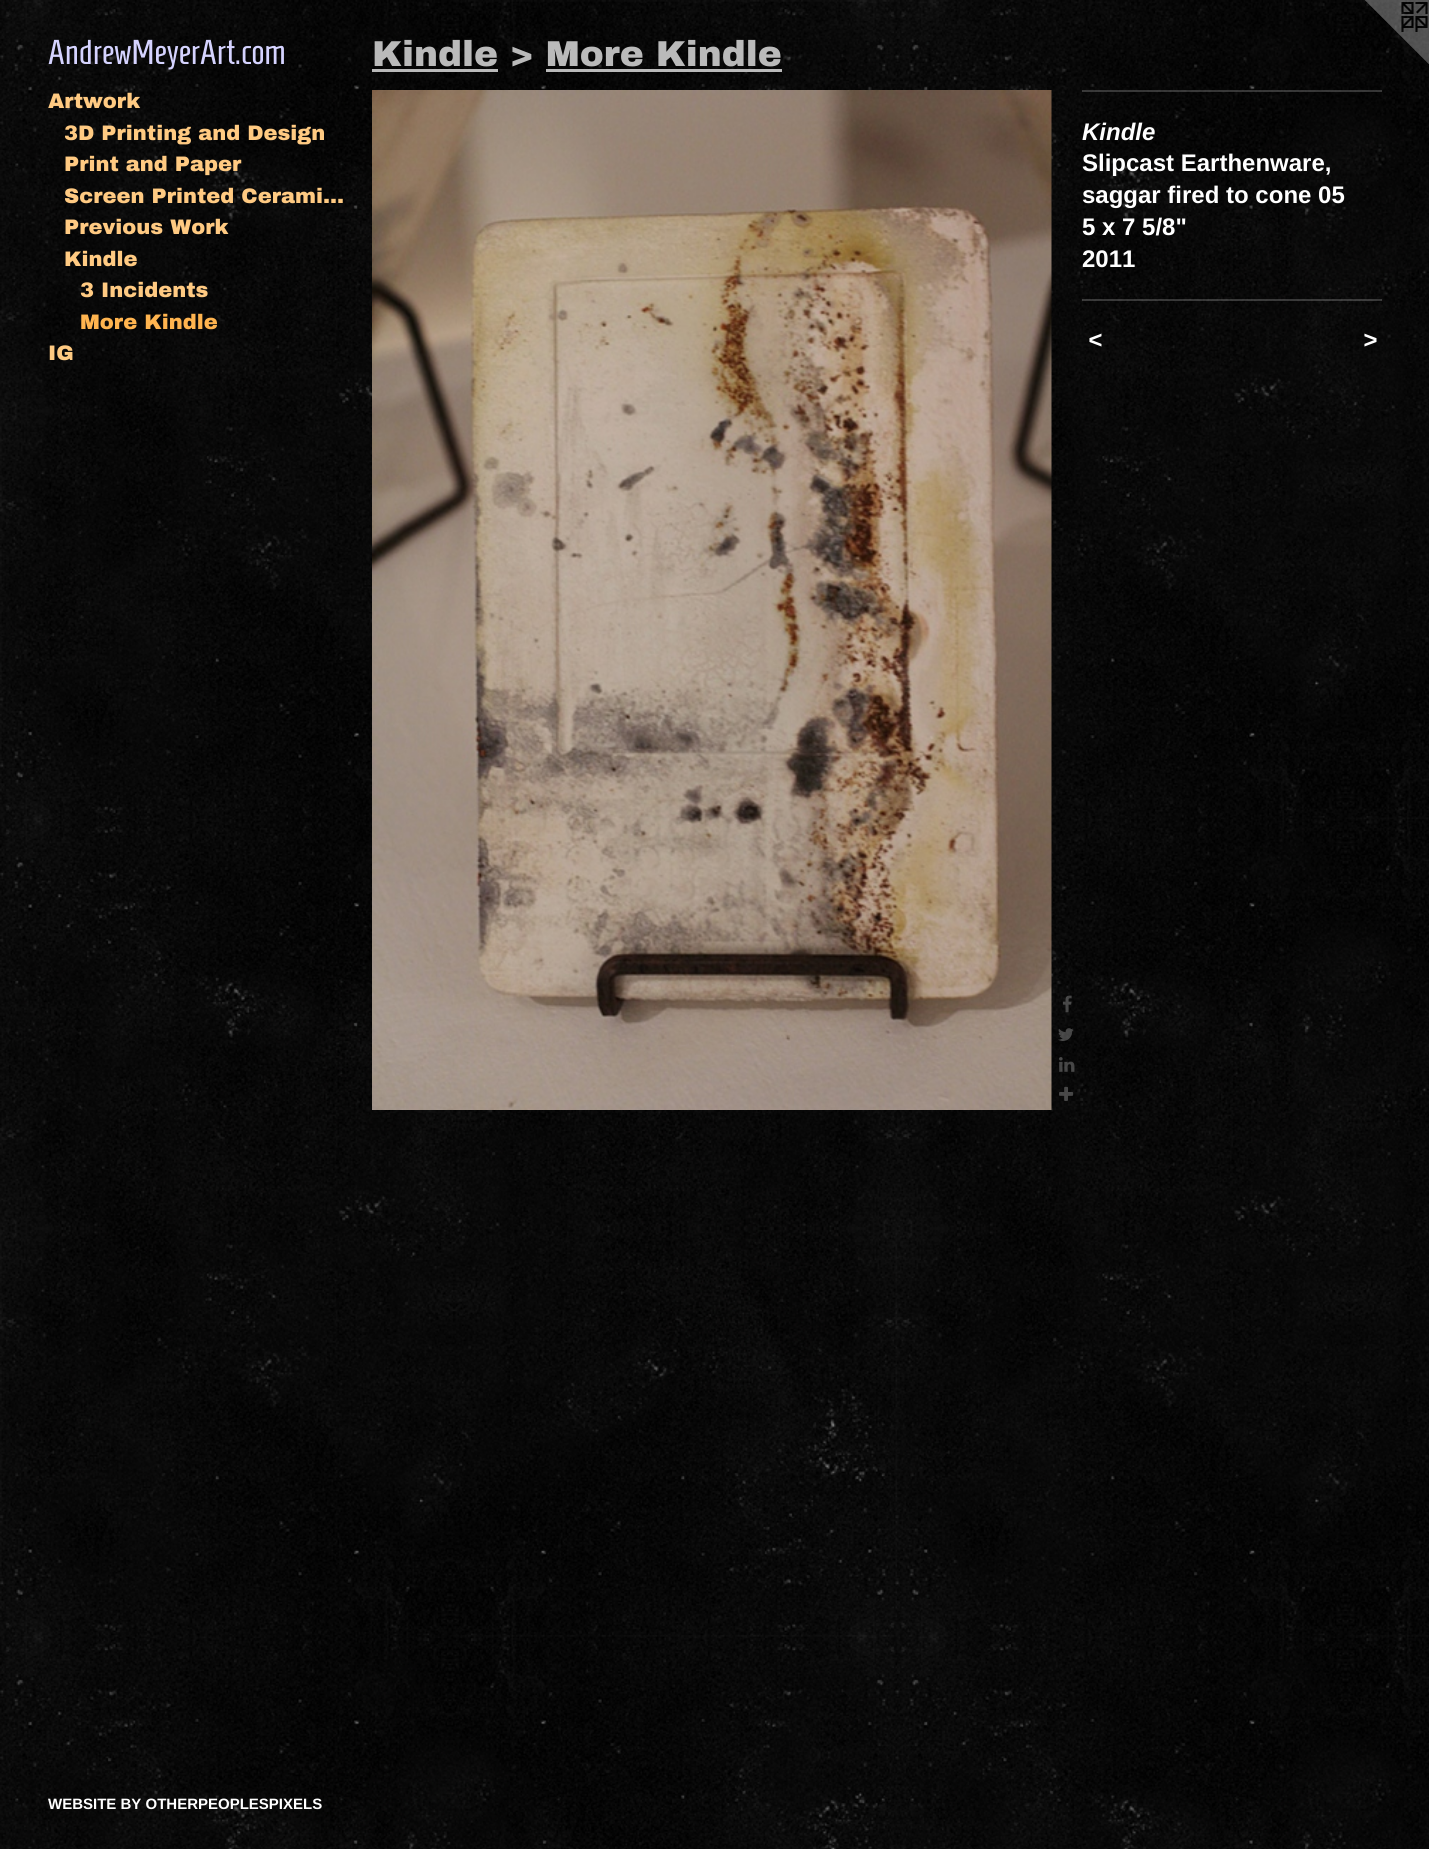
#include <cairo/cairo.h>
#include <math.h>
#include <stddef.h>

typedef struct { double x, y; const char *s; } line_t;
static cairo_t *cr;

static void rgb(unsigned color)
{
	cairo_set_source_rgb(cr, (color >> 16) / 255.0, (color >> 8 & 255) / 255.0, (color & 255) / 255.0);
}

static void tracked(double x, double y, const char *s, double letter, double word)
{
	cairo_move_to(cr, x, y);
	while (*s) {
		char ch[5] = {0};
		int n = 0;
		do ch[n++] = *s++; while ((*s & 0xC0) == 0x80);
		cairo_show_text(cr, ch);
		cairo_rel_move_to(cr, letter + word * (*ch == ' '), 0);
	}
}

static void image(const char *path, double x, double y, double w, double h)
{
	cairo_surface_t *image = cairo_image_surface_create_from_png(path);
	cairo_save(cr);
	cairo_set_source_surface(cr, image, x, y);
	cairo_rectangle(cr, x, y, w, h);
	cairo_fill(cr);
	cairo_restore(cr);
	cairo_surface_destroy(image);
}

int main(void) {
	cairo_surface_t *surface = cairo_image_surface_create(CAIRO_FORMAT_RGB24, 1429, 1849);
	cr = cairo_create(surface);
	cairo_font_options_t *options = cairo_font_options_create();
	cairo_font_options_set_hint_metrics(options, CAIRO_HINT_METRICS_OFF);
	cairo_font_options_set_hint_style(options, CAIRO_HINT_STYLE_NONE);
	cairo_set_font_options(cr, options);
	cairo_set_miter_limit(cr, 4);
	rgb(0xffffff);
	cairo_paint(cr);
	image("img/1.png", 0, 0, 1429, 1849);
	image("img/2.png", 1365, 0, 64, 64);
	rgb(0xbababa);
	cairo_rectangle(cr, 372, 69, 126, 3);
	cairo_fill(cr);
	cairo_rectangle(cr, 546, 69, 236, 3);
	cairo_fill(cr);
	image("img/3.png", 372, 90, 680, 1020);
	image("img/4.png", 1063, 995, 9, 18);
	image("img/5.png", 1058, 1028, 16, 13);
	image("img/6.png", 1059, 1057, 16, 15);
	image("img/7.png", 1059, 1086, 15, 15);
	cairo_set_source_rgba(cr, 1, 1, 1, 0.2);
	cairo_rectangle(cr, 1082, 90, 300, 2);
	cairo_fill(cr);
	cairo_rectangle(cr, 1082, 299, 300, 2);
	cairo_fill(cr);
	cairo_select_font_face(cr, "Homenaje", CAIRO_FONT_SLANT_NORMAL, CAIRO_FONT_WEIGHT_NORMAL);
	cairo_set_font_size(cr, 34.5);
	rgb(0xd5d3ff);
	cairo_move_to(cr, 48, 64);
	cairo_show_text(cr, "AndrewMeyerArt.com");
	cairo_select_font_face(cr, "Archivo Black Black", CAIRO_FONT_SLANT_NORMAL, CAIRO_FONT_WEIGHT_NORMAL);
	cairo_set_font_size(cr, 21);
	rgb(0xffca82);
	cairo_move_to(cr, 48, 108);
	cairo_show_text(cr, "Artwork");
	cairo_save(cr);
	cairo_rectangle(cr, 65, 117, 283, 32);
	cairo_clip(cr);
	cairo_move_to(cr, 64, 140);
	cairo_show_text(cr, "3D Printing and Design");
	cairo_restore(cr);
	cairo_move_to(cr, 64, 171);
	cairo_show_text(cr, "Print and Paper");
	cairo_save(cr);
	cairo_rectangle(cr, 65, 180, 283, 32);
	cairo_clip(cr);
	cairo_move_to(cr, 64, 203);
	cairo_show_text(cr, "Screen Printed Cerami…");
	cairo_restore(cr);
	{
		static const line_t items[] = {
			{64, 234, "Previous Work"},
			{64, 266, "Kindle"},
			{80, 297, "3 Incidents"},
		};
		for (size_t i = 0; i < sizeof items / sizeof *items; i++) {
			cairo_move_to(cr, items[i].x, items[i].y);
			cairo_show_text(cr, items[i].s);
		}
	}
	rgb(0xffb44f);
	cairo_move_to(cr, 80, 329);
	cairo_show_text(cr, "More Kindle");
	rgb(0xffca82);
	cairo_move_to(cr, 48, 360);
	cairo_show_text(cr, "IG");
	cairo_select_font_face(cr, "Liberation Sans", CAIRO_FONT_SLANT_NORMAL, CAIRO_FONT_WEIGHT_BOLD);
	cairo_set_font_size(cr, 15);
	rgb(0xffffff);
	cairo_move_to(cr, 48, 1809);
	cairo_show_text(cr, "WEBSITE BY OTHERPEOPLESPIXELS");
	cairo_select_font_face(cr, "Archivo Black Black", CAIRO_FONT_SLANT_NORMAL, CAIRO_FONT_WEIGHT_NORMAL);
	cairo_set_font_size(cr, 36);
	rgb(0xbababa);
	cairo_move_to(cr, 372, 66);
	cairo_show_text(cr, "Kindle > More Kindle");
	cairo_select_font_face(cr, "Liberation Sans", CAIRO_FONT_SLANT_ITALIC, CAIRO_FONT_WEIGHT_BOLD);
	cairo_set_font_size(cr, 24);
	rgb(0xffffff);
	cairo_move_to(cr, 1082, 140);
	cairo_show_text(cr, "Kindle");
	cairo_select_font_face(cr, "Liberation Sans", CAIRO_FONT_SLANT_NORMAL, CAIRO_FONT_WEIGHT_BOLD);
	{
		static const line_t items[] = {
			{1082, 171, "Slipcast Earthenware,"},
			{1082, 203, "saggar fired to cone 05"},
			{1082, 235, "5 x 7 5/8\""},
			{1082, 267, "2011"},
		};
		for (size_t i = 0; i < sizeof items / sizeof *items; i++) {
			cairo_move_to(cr, items[i].x, items[i].y);
			cairo_show_text(cr, items[i].s);
		}
	}
	cairo_select_font_face(cr, "Liberation Sans", CAIRO_FONT_SLANT_ITALIC, CAIRO_FONT_WEIGHT_BOLD);
	tracked(1088, 348, "<", 2, 0);
	tracked(1363, 348, ">", 2, 0);
	cairo_surface_write_to_png(surface, "page.png");
	cairo_font_options_destroy(options);
	cairo_destroy(cr);
	cairo_surface_destroy(surface);
	return 0;
}
